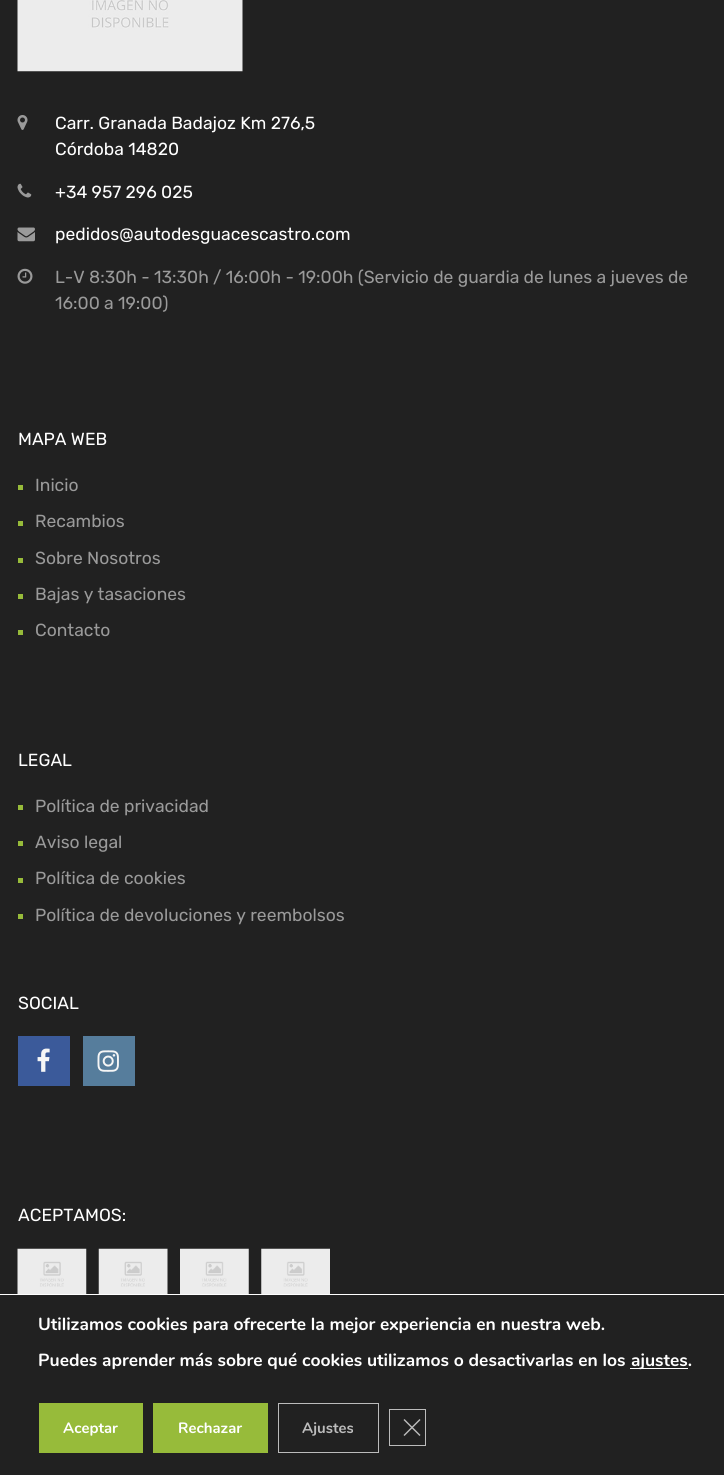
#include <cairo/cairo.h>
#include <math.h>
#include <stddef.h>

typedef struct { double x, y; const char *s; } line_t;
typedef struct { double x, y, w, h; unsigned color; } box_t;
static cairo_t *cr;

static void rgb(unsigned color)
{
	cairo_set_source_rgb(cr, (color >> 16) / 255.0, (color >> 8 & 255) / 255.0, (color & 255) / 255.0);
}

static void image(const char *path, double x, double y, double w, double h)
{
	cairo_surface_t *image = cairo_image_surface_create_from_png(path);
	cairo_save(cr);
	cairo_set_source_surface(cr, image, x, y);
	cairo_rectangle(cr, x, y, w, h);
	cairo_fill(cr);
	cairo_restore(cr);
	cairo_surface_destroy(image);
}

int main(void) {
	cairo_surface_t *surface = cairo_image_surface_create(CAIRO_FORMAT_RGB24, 724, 1475);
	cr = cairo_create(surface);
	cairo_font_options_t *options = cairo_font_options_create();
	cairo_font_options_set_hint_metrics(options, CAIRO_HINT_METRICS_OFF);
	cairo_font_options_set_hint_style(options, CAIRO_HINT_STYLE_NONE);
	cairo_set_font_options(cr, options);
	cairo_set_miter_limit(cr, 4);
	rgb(0x212121);
	cairo_paint(cr);
	image("img/1.png", 17, 0, 226, 72);
	image("img/2.png", 17, 115, 11, 15);
	image("img/3.png", 17, 183, 15, 15);
	image("img/4.png", 17, 227, 18, 15);
	image("img/5.png", 17, 268, 16, 16);
	{
		static const box_t items[] = {
			{18, 485, 5, 5, 0x97bb3a},
			{18, 521, 5, 5, 0x97bb3a},
			{18, 558, 5, 5, 0x97bb3a},
			{18, 594, 5, 5, 0x97bb3a},
			{18, 630, 5, 5, 0x97bb3a},
			{18, 805, 5, 5, 0x97bb3a},
			{18, 841, 5, 5, 0x97bb3a},
			{18, 878, 5, 5, 0x97bb3a},
			{18, 914, 5, 5, 0x97bb3a},
			{18, 1036, 52, 50, 0x3b5a9a},
		};
		for (size_t i = 0; i < sizeof items / sizeof *items; i++) {
			rgb(items[i].color);
			cairo_rectangle(cr, items[i].x, items[i].y, items[i].w, items[i].h);
			cairo_fill(cr);
		}
	}
	image("img/6.png", 37, 1048, 13, 24);
	rgb(0x567d9c);
	cairo_rectangle(cr, 83, 1036, 52, 50);
	cairo_fill(cr);
	image("img/7.png", 97, 1050, 22, 22);
	image("img/8.png", 17, 1248, 70, 46);
	image("img/9.png", 98, 1248, 70, 46);
	image("img/10.png", 180, 1248, 69, 46);
	image("img/11.png", 261, 1248, 69, 46);
	{
		static const box_t items[] = {
			{0, 1294, 724, 1, 0xffffff},
			{630, 1368, 58, 1, 0xffffff},
			{39, 1403, 104, 50, 0x97bb3a},
			{153, 1403, 115, 50, 0x97bb3a},
		};
		for (size_t i = 0; i < sizeof items / sizeof *items; i++) {
			rgb(items[i].color);
			cairo_rectangle(cr, items[i].x, items[i].y, items[i].w, items[i].h);
			cairo_fill(cr);
		}
	}
	cairo_rectangle(cr, 278.5, 1403.5, 100, 49);
	rgb(0xbcbcbc);
	cairo_set_line_width(cr, 1);
	cairo_stroke(cr);
	cairo_rectangle(cr, 389.5, 1409.5, 36, 36);
	cairo_stroke(cr);
	cairo_new_path(cr);
	cairo_move_to(cr, 419.5, 1419);
	cairo_line_to(cr, 420.5, 1420);
	cairo_line_to(cr, 404.5, 1436);
	cairo_line_to(cr, 403.5, 1435);
	cairo_close_path(cr);
	cairo_fill(cr);
	cairo_new_path(cr);
	cairo_move_to(cr, 403.5, 1420);
	cairo_line_to(cr, 404.5, 1419);
	cairo_line_to(cr, 420.5, 1435);
	cairo_line_to(cr, 419.5, 1436);
	cairo_close_path(cr);
	cairo_fill(cr);
	cairo_select_font_face(cr, "Rubik Light", CAIRO_FONT_SLANT_NORMAL, CAIRO_FONT_WEIGHT_NORMAL);
	cairo_set_font_size(cr, 17.5);
	rgb(0xffffff);
	{
		static const line_t items[] = {
			{55, 129, "Carr. Granada Badajoz Km 276,5"},
			{55, 155, "Córdoba 14820"},
			{55, 198, "+34 957 296 025"},
			{55, 240, "pedidos@autodesguacescastro.com"},
		};
		for (size_t i = 0; i < sizeof items / sizeof *items; i++) {
			cairo_move_to(cr, items[i].x, items[i].y);
			cairo_show_text(cr, items[i].s);
		}
	}
	rgb(0x9a9a9a);
	cairo_move_to(cr, 55, 283);
	cairo_show_text(cr, "L-V 8:30h - 13:30h / 16:00h - 19:00h (Servicio de guardia de lunes a jueves de");
	cairo_move_to(cr, 55, 309);
	cairo_show_text(cr, "16:00 a 19:00)");
	rgb(0xffffff);
	cairo_move_to(cr, 18, 445);
	cairo_show_text(cr, "MAPA WEB");
	rgb(0x9a9a9a);
	{
		static const line_t items[] = {
			{35, 491, "Inicio"},
			{35, 527, "Recambios"},
			{35, 564, "Sobre Nosotros"},
			{35, 600, "Bajas y tasaciones"},
			{35, 636, "Contacto"},
		};
		for (size_t i = 0; i < sizeof items / sizeof *items; i++) {
			cairo_move_to(cr, items[i].x, items[i].y);
			cairo_show_text(cr, items[i].s);
		}
	}
	rgb(0xffffff);
	cairo_move_to(cr, 18, 766);
	cairo_show_text(cr, "LEGAL");
	rgb(0x9a9a9a);
	{
		static const line_t items[] = {
			{35, 812, "Política de privacidad"},
			{35, 848, "Aviso legal"},
			{35, 884, "Política de cookies"},
			{35, 921, "Política de devoluciones y reembolsos"},
		};
		for (size_t i = 0; i < sizeof items / sizeof *items; i++) {
			cairo_move_to(cr, items[i].x, items[i].y);
			cairo_show_text(cr, items[i].s);
		}
	}
	rgb(0xffffff);
	cairo_move_to(cr, 18, 1009);
	cairo_show_text(cr, "SOCIAL");
	cairo_move_to(cr, 18, 1221);
	cairo_show_text(cr, "ACEPTAMOS:");
	cairo_select_font_face(cr, "Nunito", CAIRO_FONT_SLANT_NORMAL, CAIRO_FONT_WEIGHT_BOLD);
	{
		static const line_t items[] = {
			{38, 1330, "Utilizamos cookies para ofrecerte la mejor experiencia en nuestra web."},
			{38, 1366, "Puedes aprender más sobre qué cookies utilizamos o desactivarlas en los"},
			{631, 1366, "ajustes."},
		};
		for (size_t i = 0; i < sizeof items / sizeof *items; i++) {
			cairo_move_to(cr, items[i].x, items[i].y);
			cairo_show_text(cr, items[i].s);
		}
	}
	cairo_set_font_size(cr, 15);
	cairo_move_to(cr, 63, 1433);
	cairo_show_text(cr, "Aceptar");
	cairo_move_to(cr, 178, 1433);
	cairo_show_text(cr, "Rechazar");
	rgb(0xbcbcbc);
	cairo_move_to(cr, 302, 1433);
	cairo_show_text(cr, "Ajustes");
	cairo_surface_write_to_png(surface, "page.png");
	cairo_font_options_destroy(options);
	cairo_destroy(cr);
	cairo_surface_destroy(surface);
	return 0;
}
